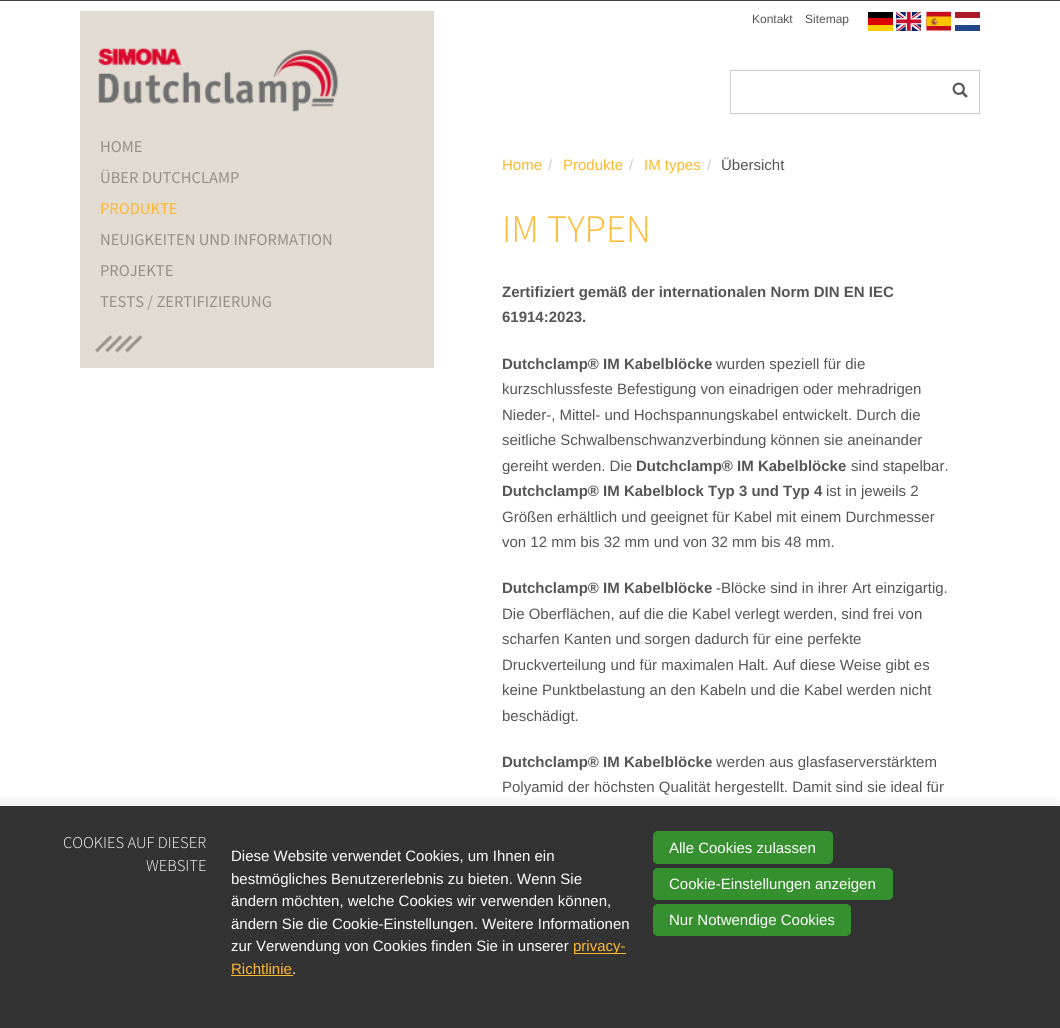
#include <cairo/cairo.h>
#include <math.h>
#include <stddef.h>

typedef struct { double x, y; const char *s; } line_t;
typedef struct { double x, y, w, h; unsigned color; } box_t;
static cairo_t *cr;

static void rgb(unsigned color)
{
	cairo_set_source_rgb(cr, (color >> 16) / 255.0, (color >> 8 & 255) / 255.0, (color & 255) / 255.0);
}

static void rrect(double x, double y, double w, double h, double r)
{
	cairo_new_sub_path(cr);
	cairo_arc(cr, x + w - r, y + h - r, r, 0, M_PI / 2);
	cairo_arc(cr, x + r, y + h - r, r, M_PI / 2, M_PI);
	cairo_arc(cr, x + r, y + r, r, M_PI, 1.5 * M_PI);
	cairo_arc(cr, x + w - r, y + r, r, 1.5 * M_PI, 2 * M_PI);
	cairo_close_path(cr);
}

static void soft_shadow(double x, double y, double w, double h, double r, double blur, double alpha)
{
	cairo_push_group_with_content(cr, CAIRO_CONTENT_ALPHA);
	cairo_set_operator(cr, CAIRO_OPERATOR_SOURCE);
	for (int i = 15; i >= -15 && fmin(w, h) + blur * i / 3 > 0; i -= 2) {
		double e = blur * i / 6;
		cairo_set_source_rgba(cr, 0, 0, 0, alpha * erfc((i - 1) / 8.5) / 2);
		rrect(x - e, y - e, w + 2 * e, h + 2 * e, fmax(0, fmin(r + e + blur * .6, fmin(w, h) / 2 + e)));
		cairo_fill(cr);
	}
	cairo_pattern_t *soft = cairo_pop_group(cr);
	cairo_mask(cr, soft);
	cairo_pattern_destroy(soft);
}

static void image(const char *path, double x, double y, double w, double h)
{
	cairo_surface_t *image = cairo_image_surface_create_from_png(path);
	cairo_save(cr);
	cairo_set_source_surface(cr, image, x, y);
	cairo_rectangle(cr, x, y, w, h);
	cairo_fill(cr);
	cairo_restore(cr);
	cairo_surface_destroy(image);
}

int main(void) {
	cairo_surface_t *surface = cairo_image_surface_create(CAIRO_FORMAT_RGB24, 1060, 1028);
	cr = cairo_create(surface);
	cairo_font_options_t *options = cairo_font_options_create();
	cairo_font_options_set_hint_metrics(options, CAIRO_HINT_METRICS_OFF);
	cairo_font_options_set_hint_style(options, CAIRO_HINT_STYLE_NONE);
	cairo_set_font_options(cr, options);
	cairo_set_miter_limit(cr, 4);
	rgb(0x404040);
	cairo_paint(cr);
	rgb(0xffffff);
	cairo_rectangle(cr, 0, 1, 1060, 1027);
	cairo_fill(cr);
	rgb(0x000000);
	cairo_rectangle(cr, 868, 12, 25, 6);
	cairo_fill(cr);
	image("img/1.png", 896, 11, 25, 20);
	image("img/2.png", 926, 11, 25, 20);
	{
		static const box_t items[] = {
			{955, 12, 25, 6, 0xae1c28},
			{868, 18, 25, 7, 0xdd0000},
			{868, 25, 25, 6, 0xffce00},
			{955, 25, 25, 6, 0x21468b},
			{80, 11, 354, 357, 0xe1dbd1},
		};
		for (size_t i = 0; i < sizeof items / sizeof *items; i++) {
			rgb(items[i].color);
			cairo_rectangle(cr, items[i].x, items[i].y, items[i].w, items[i].h);
			cairo_fill(cr);
		}
	}
	image("img/3.png", 98, 48, 240, 64);
	image("img/4.png", 95, 335, 48, 18);
	cairo_rectangle(cr, 730.5, 70.5, 249, 43);
	rgb(0xcccccc);
	cairo_set_line_width(cr, 1);
	cairo_stroke(cr);
	image("img/5.png", 952, 82, 16, 16);
	cairo_save(cr);
	cairo_rectangle(cr, 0, 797, 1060, 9);
	cairo_clip(cr);
	rgb(0x000000);
	soft_shadow(0, 813, 1060, 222, 0, 12.5, 0.2);
	cairo_restore(cr);
	cairo_set_source_rgba(cr, 0, 0, 0, 0.8);
	cairo_rectangle(cr, 0, 806, 1060, 222);
	cairo_fill(cr);
	rgb(0xfdb82f);
	cairo_rectangle(cr, 574, 953, 52, 1);
	cairo_fill(cr);
	cairo_rectangle(cr, 231, 975, 62, 1);
	cairo_fill(cr);
	rgb(0x37902f);
	rrect(653.5, 831.5, 179, 32, 4.5);
	cairo_fill_preserve(cr);
	cairo_stroke(cr);
	rrect(653.5, 868.5, 239, 31, 4.5);
	cairo_fill_preserve(cr);
	cairo_stroke(cr);
	rrect(653.5, 904.5, 197, 31, 4.5);
	cairo_fill_preserve(cr);
	cairo_stroke(cr);
	cairo_select_font_face(cr, "Liberation Sans", CAIRO_FONT_SLANT_NORMAL, CAIRO_FONT_WEIGHT_NORMAL);
	cairo_set_font_size(cr, 12);
	rgb(0x555555);
	cairo_move_to(cr, 752, 23);
	cairo_show_text(cr, "Kontakt");
	cairo_move_to(cr, 805, 23);
	cairo_show_text(cr, "Sitemap");
	cairo_select_font_face(cr, "Source Sans Pro", CAIRO_FONT_SLANT_NORMAL, CAIRO_FONT_WEIGHT_NORMAL);
	cairo_set_font_size(cr, 16.5);
	rgb(0x949089);
	cairo_move_to(cr, 100, 152);
	cairo_show_text(cr, "HOME");
	cairo_move_to(cr, 100, 183);
	cairo_show_text(cr, "ÜBER DUTCHCLAMP");
	rgb(0xfdb82f);
	cairo_move_to(cr, 100, 214);
	cairo_show_text(cr, "PRODUKTE");
	rgb(0x949089);
	{
		static const line_t items[] = {
			{100, 245, "NEUIGKEITEN UND INFORMATION"},
			{100, 276, "PROJEKTE"},
			{100, 307, "TESTS / ZERTIFIZIERUNG"},
		};
		for (size_t i = 0; i < sizeof items / sizeof *items; i++) {
			cairo_move_to(cr, items[i].x, items[i].y);
			cairo_show_text(cr, items[i].s);
		}
	}
	cairo_select_font_face(cr, "Liberation Sans", CAIRO_FONT_SLANT_NORMAL, CAIRO_FONT_WEIGHT_NORMAL);
	cairo_set_font_size(cr, 15);
	rgb(0xfdb82f);
	cairo_move_to(cr, 502, 170);
	cairo_show_text(cr, "Home");
	rgb(0xcccccc);
	cairo_move_to(cr, 548, 170);
	cairo_show_text(cr, "/");
	rgb(0xfdb82f);
	cairo_move_to(cr, 563, 170);
	cairo_show_text(cr, "Produkte");
	rgb(0xcccccc);
	cairo_move_to(cr, 629, 170);
	cairo_show_text(cr, "/");
	rgb(0xfdb82f);
	cairo_move_to(cr, 644, 170);
	cairo_show_text(cr, "IM types");
	rgb(0xcccccc);
	cairo_move_to(cr, 707, 170);
	cairo_show_text(cr, "/");
	rgb(0x555555);
	cairo_move_to(cr, 721, 170);
	cairo_show_text(cr, "Übersicht");
	cairo_select_font_face(cr, "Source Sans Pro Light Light", CAIRO_FONT_SLANT_NORMAL, CAIRO_FONT_WEIGHT_NORMAL);
	cairo_set_font_size(cr, 39);
	rgb(0xfdb82f);
	cairo_move_to(cr, 502, 242);
	cairo_show_text(cr, "IM TYPEN");
	cairo_select_font_face(cr, "Liberation Sans", CAIRO_FONT_SLANT_NORMAL, CAIRO_FONT_WEIGHT_BOLD);
	cairo_set_font_size(cr, 15);
	rgb(0x555555);
	{
		static const line_t items[] = {
			{502, 297, "Zertifiziert gemäß der internationalen Norm DIN EN IEC"},
			{502, 322, "61914:2023."},
			{502, 369, "Dutchclamp® IM Kabelblöcke"},
		};
		for (size_t i = 0; i < sizeof items / sizeof *items; i++) {
			cairo_move_to(cr, items[i].x, items[i].y);
			cairo_show_text(cr, items[i].s);
		}
	}
	cairo_select_font_face(cr, "Liberation Sans", CAIRO_FONT_SLANT_NORMAL, CAIRO_FONT_WEIGHT_NORMAL);
	{
		static const line_t items[] = {
			{716, 369, "wurden speziell für die"},
			{502, 394, "kurzschlussfeste Befestigung von einadrigen oder mehradrigen"},
			{502, 420, "Nieder-, Mittel- und Hochspannungskabel entwickelt. Durch die"},
			{502, 445, "seitliche Schwalbenschwanzverbindung können sie aneinander"},
			{502, 471, "gereiht werden. Die"},
		};
		for (size_t i = 0; i < sizeof items / sizeof *items; i++) {
			cairo_move_to(cr, items[i].x, items[i].y);
			cairo_show_text(cr, items[i].s);
		}
	}
	cairo_select_font_face(cr, "Liberation Sans", CAIRO_FONT_SLANT_NORMAL, CAIRO_FONT_WEIGHT_BOLD);
	cairo_move_to(cr, 636, 471);
	cairo_show_text(cr, "Dutchclamp® IM Kabelblöcke");
	cairo_select_font_face(cr, "Liberation Sans", CAIRO_FONT_SLANT_NORMAL, CAIRO_FONT_WEIGHT_NORMAL);
	cairo_move_to(cr, 851, 471);
	cairo_show_text(cr, "sind stapelbar.");
	cairo_select_font_face(cr, "Liberation Sans", CAIRO_FONT_SLANT_NORMAL, CAIRO_FONT_WEIGHT_BOLD);
	cairo_move_to(cr, 502, 496);
	cairo_show_text(cr, "Dutchclamp® IM Kabelblock Typ 3 und Typ 4");
	cairo_select_font_face(cr, "Liberation Sans", CAIRO_FONT_SLANT_NORMAL, CAIRO_FONT_WEIGHT_NORMAL);
	{
		static const line_t items[] = {
			{826, 496, "ist in jeweils 2"},
			{502, 522, "Größen erhältlich und geeignet für Kabel mit einem Durchmesser"},
			{502, 547, "von 12 mm bis 32 mm und von 32 mm bis 48 mm."},
		};
		for (size_t i = 0; i < sizeof items / sizeof *items; i++) {
			cairo_move_to(cr, items[i].x, items[i].y);
			cairo_show_text(cr, items[i].s);
		}
	}
	cairo_select_font_face(cr, "Liberation Sans", CAIRO_FONT_SLANT_NORMAL, CAIRO_FONT_WEIGHT_BOLD);
	cairo_move_to(cr, 502, 593);
	cairo_show_text(cr, "Dutchclamp® IM Kabelblöcke");
	cairo_select_font_face(cr, "Liberation Sans", CAIRO_FONT_SLANT_NORMAL, CAIRO_FONT_WEIGHT_NORMAL);
	{
		static const line_t items[] = {
			{716, 593, "-Blöcke sind in ihrer Art einzigartig."},
			{502, 619, "Die Oberflächen, auf die die Kabel verlegt werden, sind frei von"},
			{502, 644, "scharfen Kanten und sorgen dadurch für eine perfekte"},
			{502, 670, "Druckverteilung und für maximalen Halt. Auf diese Weise gibt es"},
			{502, 695, "keine Punktbelastung an den Kabeln und die Kabel werden nicht"},
			{502, 721, "beschädigt."},
		};
		for (size_t i = 0; i < sizeof items / sizeof *items; i++) {
			cairo_move_to(cr, items[i].x, items[i].y);
			cairo_show_text(cr, items[i].s);
		}
	}
	cairo_select_font_face(cr, "Liberation Sans", CAIRO_FONT_SLANT_NORMAL, CAIRO_FONT_WEIGHT_BOLD);
	cairo_move_to(cr, 502, 767);
	cairo_show_text(cr, "Dutchclamp® IM Kabelblöcke");
	cairo_select_font_face(cr, "Liberation Sans", CAIRO_FONT_SLANT_NORMAL, CAIRO_FONT_WEIGHT_NORMAL);
	cairo_move_to(cr, 716, 767);
	cairo_show_text(cr, "werden aus glasfaserverstärktem");
	cairo_move_to(cr, 502, 792);
	cairo_show_text(cr, "Polyamid der höchsten Qualität hergestellt. Damit sind sie ideal für");
	cairo_select_font_face(cr, "Source Sans Pro Light Light", CAIRO_FONT_SLANT_NORMAL, CAIRO_FONT_WEIGHT_NORMAL);
	cairo_set_font_size(cr, 16.5);
	rgb(0xffffff);
	cairo_move_to(cr, 63, 848);
	cairo_show_text(cr, "COOKIES AUF DIESER");
	cairo_move_to(cr, 146, 871);
	cairo_show_text(cr, "WEBSITE");
	cairo_select_font_face(cr, "Liberation Sans", CAIRO_FONT_SLANT_NORMAL, CAIRO_FONT_WEIGHT_NORMAL);
	cairo_set_font_size(cr, 15);
	{
		static const line_t items[] = {
			{231, 861, "Diese Website verwendet Cookies, um Ihnen ein"},
			{231, 884, "bestmögliches Benutzererlebnis zu bieten. Wenn Sie"},
			{231, 906, "ändern möchten, welche Cookies wir verwenden können,"},
			{231, 929, "ändern Sie die Cookie-Einstellungen. Weitere Informationen"},
			{231, 951, "zur Verwendung von Cookies finden Sie in unserer"},
		};
		for (size_t i = 0; i < sizeof items / sizeof *items; i++) {
			cairo_move_to(cr, items[i].x, items[i].y);
			cairo_show_text(cr, items[i].s);
		}
	}
	rgb(0xfdb82f);
	cairo_move_to(cr, 573, 951);
	cairo_show_text(cr, "privacy-");
	cairo_move_to(cr, 231, 974);
	cairo_show_text(cr, "Richtlinie");
	rgb(0xffffff);
	{
		static const line_t items[] = {
			{292, 974, "."},
			{669, 853, "Alle Cookies zulassen"},
			{669, 889, "Cookie-Einstellungen anzeigen"},
			{669, 925, "Nur Notwendige Cookies"},
		};
		for (size_t i = 0; i < sizeof items / sizeof *items; i++) {
			cairo_move_to(cr, items[i].x, items[i].y);
			cairo_show_text(cr, items[i].s);
		}
	}
	cairo_surface_write_to_png(surface, "page.png");
	cairo_font_options_destroy(options);
	cairo_destroy(cr);
	cairo_surface_destroy(surface);
	return 0;
}
